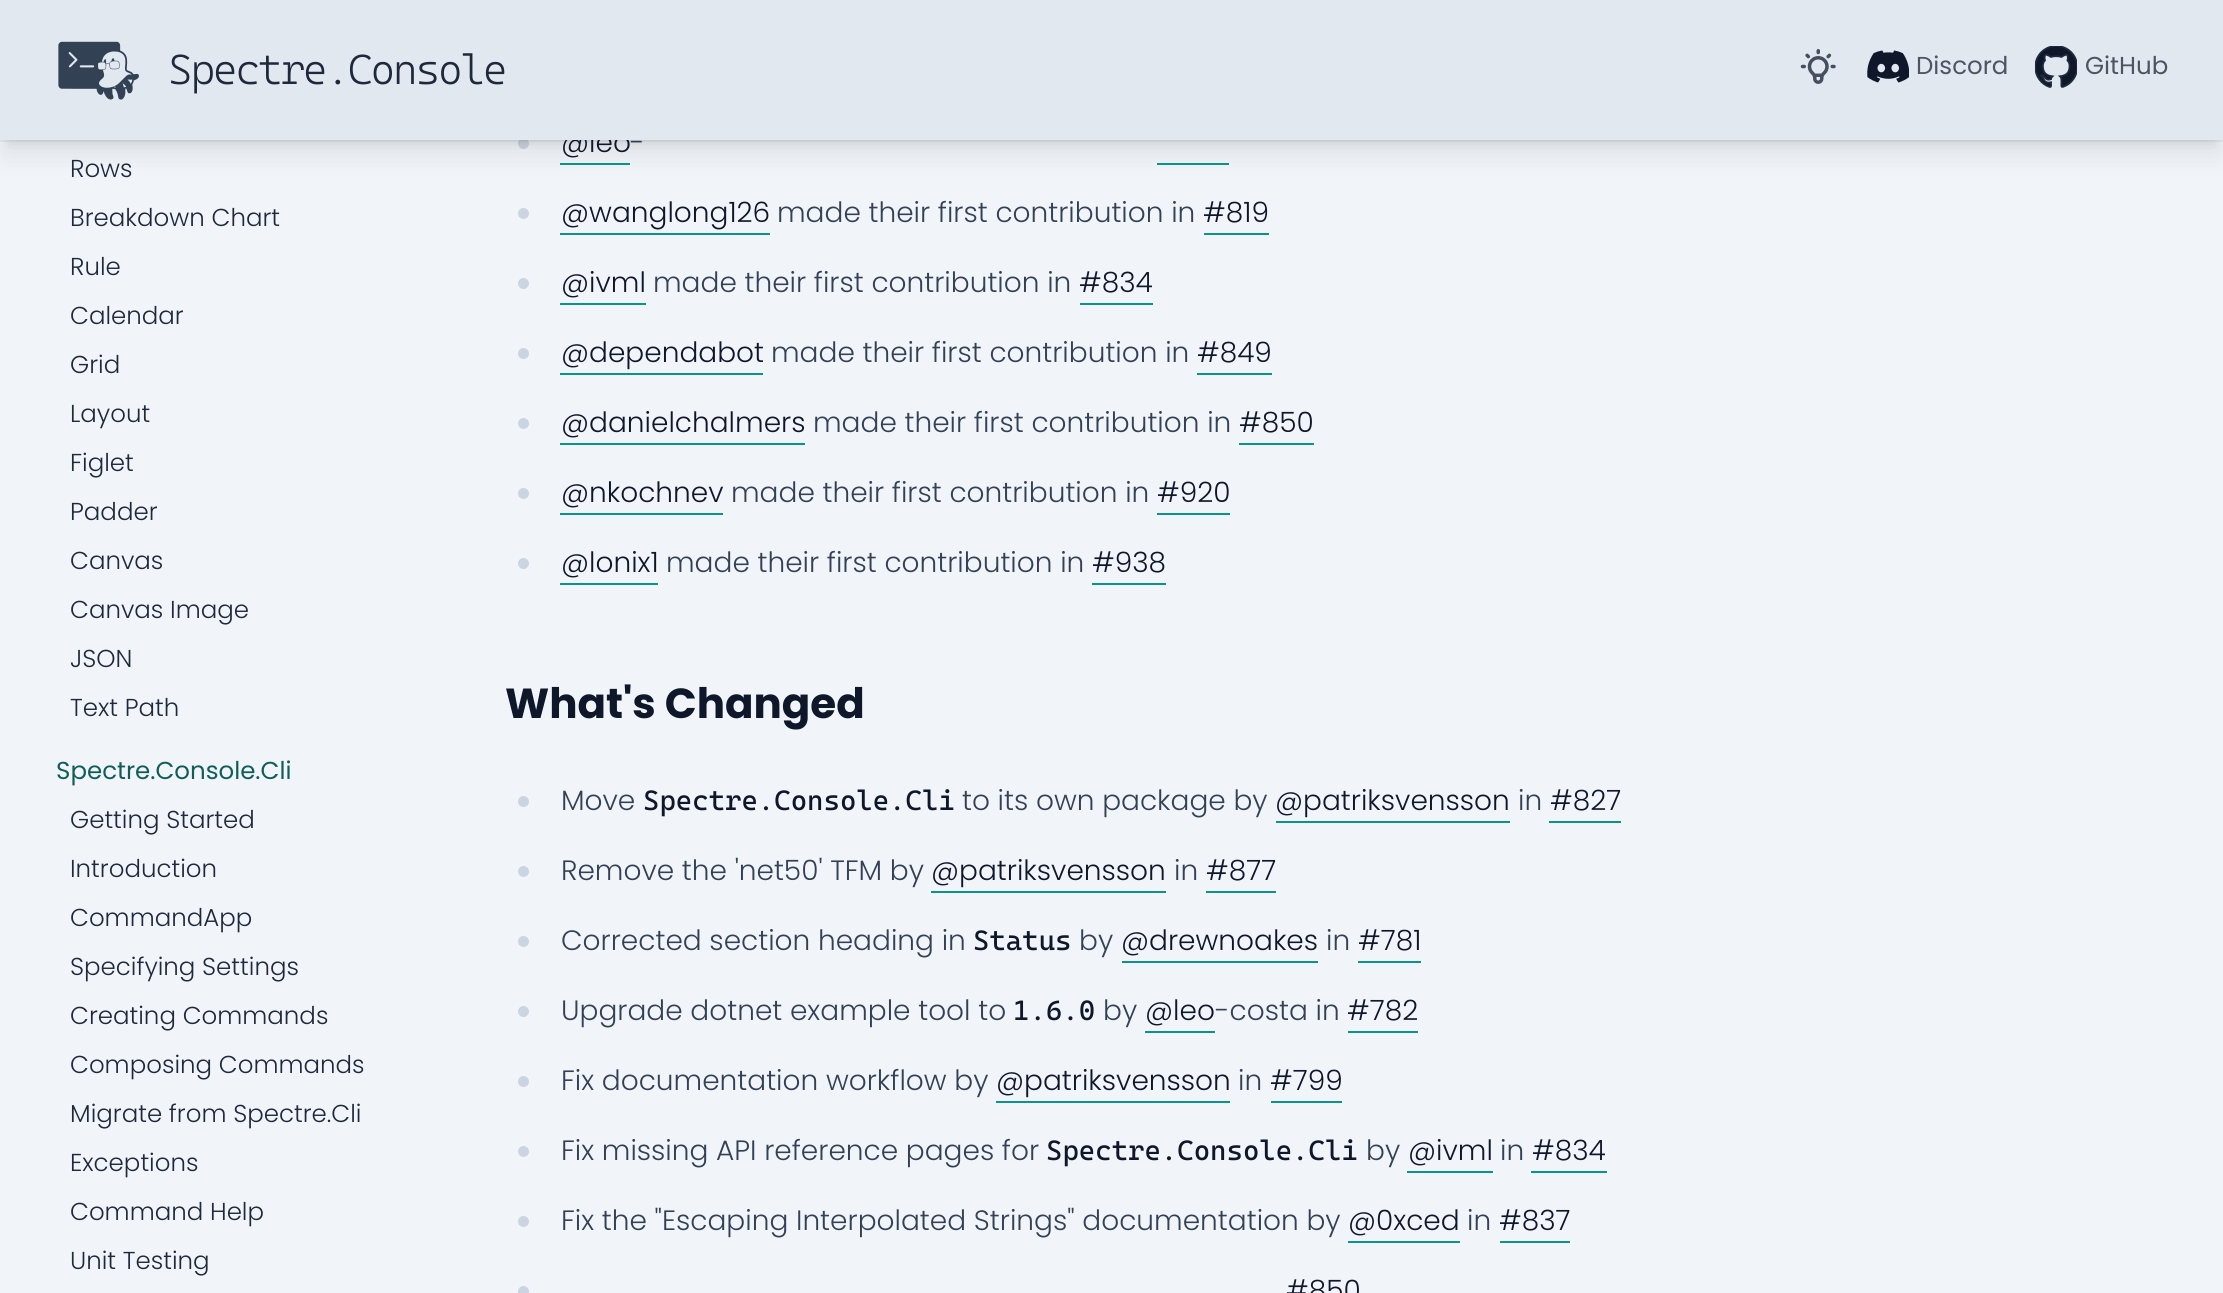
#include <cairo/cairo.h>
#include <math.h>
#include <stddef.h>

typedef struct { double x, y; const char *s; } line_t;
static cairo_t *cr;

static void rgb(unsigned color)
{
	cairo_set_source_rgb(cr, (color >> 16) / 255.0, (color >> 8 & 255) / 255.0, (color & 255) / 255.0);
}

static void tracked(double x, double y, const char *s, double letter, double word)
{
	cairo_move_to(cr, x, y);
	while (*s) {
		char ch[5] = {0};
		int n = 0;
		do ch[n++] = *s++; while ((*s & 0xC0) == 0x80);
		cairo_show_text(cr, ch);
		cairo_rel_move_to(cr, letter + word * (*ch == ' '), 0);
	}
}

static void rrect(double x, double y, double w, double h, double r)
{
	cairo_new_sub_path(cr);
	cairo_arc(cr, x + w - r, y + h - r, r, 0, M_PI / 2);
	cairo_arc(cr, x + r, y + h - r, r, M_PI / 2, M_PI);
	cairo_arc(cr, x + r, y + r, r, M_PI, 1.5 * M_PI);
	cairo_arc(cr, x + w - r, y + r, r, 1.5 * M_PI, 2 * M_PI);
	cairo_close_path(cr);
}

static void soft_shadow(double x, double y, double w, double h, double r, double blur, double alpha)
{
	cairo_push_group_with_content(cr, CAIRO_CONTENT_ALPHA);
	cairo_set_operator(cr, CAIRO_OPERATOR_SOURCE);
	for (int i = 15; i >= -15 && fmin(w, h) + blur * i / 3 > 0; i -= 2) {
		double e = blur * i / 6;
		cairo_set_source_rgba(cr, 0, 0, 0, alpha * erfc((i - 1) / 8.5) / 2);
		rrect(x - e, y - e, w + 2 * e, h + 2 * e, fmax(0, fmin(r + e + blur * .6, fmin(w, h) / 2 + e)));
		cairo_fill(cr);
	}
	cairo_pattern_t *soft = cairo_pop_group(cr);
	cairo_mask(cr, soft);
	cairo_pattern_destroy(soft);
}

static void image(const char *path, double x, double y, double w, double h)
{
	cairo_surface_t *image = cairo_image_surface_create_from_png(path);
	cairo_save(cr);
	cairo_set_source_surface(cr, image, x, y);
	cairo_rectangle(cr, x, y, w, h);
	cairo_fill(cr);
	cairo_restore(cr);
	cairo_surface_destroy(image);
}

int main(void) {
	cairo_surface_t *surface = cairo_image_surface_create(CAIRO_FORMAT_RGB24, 2223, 1293);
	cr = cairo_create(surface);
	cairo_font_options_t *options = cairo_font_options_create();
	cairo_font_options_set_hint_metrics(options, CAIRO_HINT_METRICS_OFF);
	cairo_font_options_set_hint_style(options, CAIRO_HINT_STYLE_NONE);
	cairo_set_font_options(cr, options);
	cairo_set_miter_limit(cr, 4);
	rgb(0xf1f5f9);
	cairo_paint(cr);
	rgb(0xcbd5e1);
	cairo_arc(cr, 523.5, 143.5, 5.5, 0, 2 * M_PI);
	cairo_fill(cr);
	rgb(0x000000);
	soft_shadow(7, 14, 2210, 126, 0, 5, 0.1);
	rgb(0x0d9488);
	cairo_rectangle(cr, 560, 163, 70, 2);
	cairo_fill(cr);
	cairo_rectangle(cr, 1157, 163, 72, 2);
	cairo_fill(cr);
	rgb(0x000000);
	soft_shadow(5, 23, 2214, 129, 0, 13, 0.1);
	rgb(0xcbd5e1);
	cairo_arc(cr, 523.5, 213.5, 5.5, 0, 2 * M_PI);
	cairo_fill(cr);
	rgb(0x0d9488);
	cairo_rectangle(cr, 560, 233, 210, 2);
	cairo_fill(cr);
	cairo_rectangle(cr, 1204, 233, 65, 2);
	cairo_fill(cr);
	rgb(0xcbd5e1);
	cairo_arc(cr, 523.5, 283.5, 5.5, 0, 2 * M_PI);
	cairo_fill(cr);
	rgb(0x0d9488);
	cairo_rectangle(cr, 560, 303, 86, 2);
	cairo_fill(cr);
	cairo_rectangle(cr, 1080, 303, 73, 2);
	cairo_fill(cr);
	rgb(0xcbd5e1);
	cairo_arc(cr, 523.5, 353.5, 5.5, 0, 2 * M_PI);
	cairo_fill(cr);
	rgb(0x0d9488);
	cairo_rectangle(cr, 560, 373, 203, 2);
	cairo_fill(cr);
	cairo_rectangle(cr, 1197, 373, 75, 2);
	cairo_fill(cr);
	rgb(0xcbd5e1);
	cairo_arc(cr, 523.5, 423.5, 5.5, 0, 2 * M_PI);
	cairo_fill(cr);
	rgb(0x0d9488);
	cairo_rectangle(cr, 560, 443, 245, 2);
	cairo_fill(cr);
	cairo_rectangle(cr, 1239, 443, 75, 2);
	cairo_fill(cr);
	rgb(0xcbd5e1);
	cairo_arc(cr, 523.5, 493.5, 5.5, 0, 2 * M_PI);
	cairo_fill(cr);
	rgb(0x0d9488);
	cairo_rectangle(cr, 560, 513, 163, 2);
	cairo_fill(cr);
	cairo_rectangle(cr, 1157, 513, 73, 2);
	cairo_fill(cr);
	rgb(0xcbd5e1);
	cairo_arc(cr, 523.5, 563.5, 5.5, 0, 2 * M_PI);
	cairo_fill(cr);
	rgb(0x0d9488);
	cairo_rectangle(cr, 560, 583, 98, 2);
	cairo_fill(cr);
	cairo_rectangle(cr, 1092, 583, 74, 2);
	cairo_fill(cr);
	rgb(0xcbd5e1);
	cairo_arc(cr, 523.5, 801.5, 5.5, 0, 2 * M_PI);
	cairo_fill(cr);
	rgb(0x0d9488);
	cairo_rectangle(cr, 1276, 821, 234, 2);
	cairo_fill(cr);
	cairo_rectangle(cr, 1549, 821, 72, 2);
	cairo_fill(cr);
	rgb(0xcbd5e1);
	cairo_arc(cr, 523.5, 871.5, 5.5, 0, 2 * M_PI);
	cairo_fill(cr);
	rgb(0x0d9488);
	cairo_rectangle(cr, 931, 891, 235, 2);
	cairo_fill(cr);
	cairo_rectangle(cr, 1206, 891, 70, 2);
	cairo_fill(cr);
	rgb(0xcbd5e1);
	cairo_arc(cr, 523.5, 941.5, 5.5, 0, 2 * M_PI);
	cairo_fill(cr);
	rgb(0x0d9488);
	cairo_rectangle(cr, 1122, 961, 196, 2);
	cairo_fill(cr);
	cairo_rectangle(cr, 1358, 961, 63, 2);
	cairo_fill(cr);
	rgb(0xcbd5e1);
	cairo_arc(cr, 523.5, 1011.5, 5.5, 0, 2 * M_PI);
	cairo_fill(cr);
	rgb(0x0d9488);
	cairo_rectangle(cr, 1145, 1031, 70, 2);
	cairo_fill(cr);
	cairo_rectangle(cr, 1348, 1031, 70, 2);
	cairo_fill(cr);
	rgb(0xcbd5e1);
	cairo_arc(cr, 523.5, 1081.5, 5.5, 0, 2 * M_PI);
	cairo_fill(cr);
	rgb(0x0d9488);
	cairo_rectangle(cr, 996, 1101, 234, 2);
	cairo_fill(cr);
	cairo_rectangle(cr, 1271, 1101, 71, 2);
	cairo_fill(cr);
	rgb(0xcbd5e1);
	cairo_arc(cr, 523.5, 1151.5, 5.5, 0, 2 * M_PI);
	cairo_fill(cr);
	rgb(0x0d9488);
	cairo_rectangle(cr, 1407, 1171, 86, 2);
	cairo_fill(cr);
	cairo_rectangle(cr, 1531, 1171, 76, 2);
	cairo_fill(cr);
	rgb(0xcbd5e1);
	cairo_arc(cr, 523.5, 1221.5, 5.5, 0, 2 * M_PI);
	cairo_fill(cr);
	rgb(0x0d9488);
	cairo_rectangle(cr, 1348, 1241, 112, 2);
	cairo_fill(cr);
	cairo_rectangle(cr, 1500, 1241, 70, 2);
	cairo_fill(cr);
	rgb(0xcbd5e1);
	cairo_arc(cr, 523.5, 1291.5, 5.5, 0, 2 * M_PI);
	cairo_fill(cr);
	cairo_select_font_face(cr, "Poppins Light", CAIRO_FONT_SLANT_NORMAL, CAIRO_FONT_WEIGHT_NORMAL);
	cairo_set_font_size(cr, 24.5);
	rgb(0x1e293b);
	{
		static const line_t items[] = {
			{70, 177, "Rows"},
			{70, 226, "Breakdown Chart"},
			{70, 275, "Rule"},
			{70, 324, "Calendar"},
			{70, 373, "Grid"},
			{70, 422, "Layout"},
			{70, 471, "Figlet"},
			{70, 520, "Padder"},
			{70, 569, "Canvas"},
			{70, 618, "Canvas Image"},
			{70, 667, "JSON"},
			{70, 716, "Text Path"},
		};
		for (size_t i = 0; i < sizeof items / sizeof *items; i++) {
			cairo_move_to(cr, items[i].x, items[i].y);
			cairo_show_text(cr, items[i].s);
		}
	}
	cairo_select_font_face(cr, "Poppins", CAIRO_FONT_SLANT_NORMAL, CAIRO_FONT_WEIGHT_NORMAL);
	rgb(0x115e59);
	cairo_move_to(cr, 56, 779);
	cairo_show_text(cr, "Spectre.Console.Cli");
	cairo_select_font_face(cr, "Poppins Light", CAIRO_FONT_SLANT_NORMAL, CAIRO_FONT_WEIGHT_NORMAL);
	rgb(0x1e293b);
	{
		static const line_t items[] = {
			{70, 828, "Getting Started"},
			{70, 877, "Introduction"},
			{70, 926, "CommandApp"},
			{70, 975, "Specifying Settings"},
			{70, 1024, "Creating Commands"},
			{70, 1073, "Composing Commands"},
			{70, 1122, "Migrate from Spectre.Cli"},
			{70, 1171, "Exceptions"},
			{70, 1220, "Command Help"},
			{70, 1269, "Unit Testing"},
		};
		for (size_t i = 0; i < sizeof items / sizeof *items; i++) {
			cairo_move_to(cr, items[i].x, items[i].y);
			cairo_show_text(cr, items[i].s);
		}
	}
	cairo_set_font_size(cr, 28);
	rgb(0x0f172a);
	cairo_move_to(cr, 561, 152);
	cairo_show_text(cr, "@leo");
	rgb(0x334155);
	cairo_move_to(cr, 630, 152);
	cairo_show_text(cr, "-");
	cairo_rectangle(cr, -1, -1, 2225, 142);
	cairo_set_source_rgba(cr, 0.059, 0.09, 0.165, 0.05);
	cairo_stroke(cr);
	rgb(0xe2e8f0);
	cairo_rectangle(cr, 0, 0, 2223, 140);
	cairo_fill(cr);
	image("img/2.png", 1800, 49, 36, 35);
	image("img/4.png", 2035, 46, 42, 42);
	image("img/3.png", 1867, 50, 42, 33);
	image("img/1.png", 58, 41, 81, 59);
	cairo_select_font_face(cr, "Poppins", CAIRO_FONT_SLANT_NORMAL, CAIRO_FONT_WEIGHT_NORMAL);
	cairo_set_font_size(cr, 24.5);
	rgb(0x4b5563);
	cairo_move_to(cr, 2085, 74);
	cairo_show_text(cr, "GitHub");
	cairo_move_to(cr, 1916, 74);
	cairo_show_text(cr, "Discord");
	cairo_select_font_face(cr, "Cascadia Mono Light", CAIRO_FONT_SLANT_NORMAL, CAIRO_FONT_WEIGHT_NORMAL);
	cairo_set_font_size(cr, 42);
	rgb(0x1e293b);
	tracked(168, 84, "Spectre.Console", -2.1, 0);
	cairo_select_font_face(cr, "Poppins Light", CAIRO_FONT_SLANT_NORMAL, CAIRO_FONT_WEIGHT_NORMAL);
	cairo_set_font_size(cr, 28);
	rgb(0x0f172a);
	cairo_move_to(cr, 561, 222);
	cairo_show_text(cr, "@wanglong126");
	rgb(0x334155);
	cairo_move_to(cr, 777, 222);
	cairo_show_text(cr, "made their first contribution in");
	rgb(0x0f172a);
	cairo_move_to(cr, 1203, 222);
	cairo_show_text(cr, "#819");
	cairo_move_to(cr, 561, 292);
	cairo_show_text(cr, "@ivml");
	rgb(0x334155);
	cairo_move_to(cr, 653, 292);
	cairo_show_text(cr, "made their first contribution in");
	rgb(0x0f172a);
	cairo_move_to(cr, 1079, 292);
	cairo_show_text(cr, "#834");
	cairo_move_to(cr, 561, 362);
	cairo_show_text(cr, "@dependabot");
	rgb(0x334155);
	cairo_move_to(cr, 771, 362);
	cairo_show_text(cr, "made their first contribution in");
	rgb(0x0f172a);
	cairo_move_to(cr, 1197, 362);
	cairo_show_text(cr, "#849");
	cairo_move_to(cr, 561, 432);
	cairo_show_text(cr, "@danielchalmers");
	rgb(0x334155);
	cairo_move_to(cr, 813, 432);
	cairo_show_text(cr, "made their first contribution in");
	rgb(0x0f172a);
	cairo_move_to(cr, 1239, 432);
	cairo_show_text(cr, "#850");
	cairo_move_to(cr, 561, 502);
	cairo_show_text(cr, "@nkochnev");
	rgb(0x334155);
	cairo_move_to(cr, 731, 502);
	cairo_show_text(cr, "made their first contribution in");
	rgb(0x0f172a);
	cairo_move_to(cr, 1157, 502);
	cairo_show_text(cr, "#920");
	cairo_move_to(cr, 561, 572);
	cairo_show_text(cr, "@lonix1");
	rgb(0x334155);
	cairo_move_to(cr, 666, 572);
	cairo_show_text(cr, "made their first contribution in");
	rgb(0x0f172a);
	cairo_move_to(cr, 1092, 572);
	cairo_show_text(cr, "#938");
	cairo_select_font_face(cr, "Poppins", CAIRO_FONT_SLANT_NORMAL, CAIRO_FONT_WEIGHT_BOLD);
	cairo_set_font_size(cr, 42);
	cairo_move_to(cr, 505, 718);
	cairo_show_text(cr, "What's Changed");
	cairo_select_font_face(cr, "Poppins Light", CAIRO_FONT_SLANT_NORMAL, CAIRO_FONT_WEIGHT_NORMAL);
	cairo_set_font_size(cr, 28);
	rgb(0x334155);
	cairo_move_to(cr, 561, 810);
	cairo_show_text(cr, "Move");
	cairo_select_font_face(cr, "Cascadia Mono", CAIRO_FONT_SLANT_NORMAL, CAIRO_FONT_WEIGHT_NORMAL);
	rgb(0x0f172a);
	cairo_move_to(cr, 643, 810);
	cairo_show_text(cr, "Spectre.Console.Cli");
	cairo_select_font_face(cr, "Poppins Light", CAIRO_FONT_SLANT_NORMAL, CAIRO_FONT_WEIGHT_NORMAL);
	rgb(0x334155);
	cairo_move_to(cr, 962, 810);
	cairo_show_text(cr, "to its own package by");
	rgb(0x0f172a);
	cairo_move_to(cr, 1275, 810);
	cairo_show_text(cr, "@patriksvensson");
	rgb(0x334155);
	cairo_move_to(cr, 1518, 810);
	cairo_show_text(cr, "in");
	rgb(0x0f172a);
	cairo_move_to(cr, 1550, 810);
	cairo_show_text(cr, "#827");
	rgb(0x334155);
	cairo_move_to(cr, 561, 880);
	cairo_show_text(cr, "Remove the 'net50' TFM by");
	rgb(0x0f172a);
	cairo_move_to(cr, 931, 880);
	cairo_show_text(cr, "@patriksvensson");
	rgb(0x334155);
	cairo_move_to(cr, 1174, 880);
	cairo_show_text(cr, "in");
	rgb(0x0f172a);
	cairo_move_to(cr, 1206, 880);
	cairo_show_text(cr, "#877");
	rgb(0x334155);
	cairo_move_to(cr, 561, 950);
	cairo_show_text(cr, "Corrected section heading in");
	cairo_select_font_face(cr, "Cascadia Mono", CAIRO_FONT_SLANT_NORMAL, CAIRO_FONT_WEIGHT_NORMAL);
	rgb(0x0f172a);
	cairo_move_to(cr, 973, 950);
	cairo_show_text(cr, "Status");
	cairo_select_font_face(cr, "Poppins Light", CAIRO_FONT_SLANT_NORMAL, CAIRO_FONT_WEIGHT_NORMAL);
	rgb(0x334155);
	cairo_move_to(cr, 1079, 950);
	cairo_show_text(cr, "by");
	rgb(0x0f172a);
	cairo_move_to(cr, 1121, 950);
	cairo_show_text(cr, "@drewnoakes");
	rgb(0x334155);
	cairo_move_to(cr, 1326, 950);
	cairo_show_text(cr, "in");
	rgb(0x0f172a);
	cairo_move_to(cr, 1358, 950);
	cairo_show_text(cr, "#781");
	rgb(0x334155);
	cairo_move_to(cr, 561, 1020);
	cairo_show_text(cr, "Upgrade dotnet example tool to");
	cairo_select_font_face(cr, "Cascadia Mono", CAIRO_FONT_SLANT_NORMAL, CAIRO_FONT_WEIGHT_NORMAL);
	rgb(0x0f172a);
	cairo_move_to(cr, 1013, 1020);
	cairo_show_text(cr, "1.6.0");
	cairo_select_font_face(cr, "Poppins Light", CAIRO_FONT_SLANT_NORMAL, CAIRO_FONT_WEIGHT_NORMAL);
	rgb(0x334155);
	cairo_move_to(cr, 1103, 1020);
	cairo_show_text(cr, "by");
	rgb(0x0f172a);
	cairo_move_to(cr, 1145, 1020);
	cairo_show_text(cr, "@leo");
	rgb(0x334155);
	cairo_move_to(cr, 1215, 1020);
	cairo_show_text(cr, "-costa in");
	rgb(0x0f172a);
	cairo_move_to(cr, 1347, 1020);
	cairo_show_text(cr, "#782");
	rgb(0x334155);
	cairo_move_to(cr, 561, 1090);
	cairo_show_text(cr, "Fix documentation workflow by");
	rgb(0x0f172a);
	cairo_move_to(cr, 996, 1090);
	cairo_show_text(cr, "@patriksvensson");
	rgb(0x334155);
	cairo_move_to(cr, 1238, 1090);
	cairo_show_text(cr, "in");
	rgb(0x0f172a);
	cairo_move_to(cr, 1270, 1090);
	cairo_show_text(cr, "#799");
	rgb(0x334155);
	cairo_move_to(cr, 561, 1160);
	cairo_show_text(cr, "Fix missing API reference pages for");
	cairo_select_font_face(cr, "Cascadia Mono", CAIRO_FONT_SLANT_NORMAL, CAIRO_FONT_WEIGHT_NORMAL);
	rgb(0x0f172a);
	cairo_move_to(cr, 1046, 1160);
	cairo_show_text(cr, "Spectre.Console.Cli");
	cairo_select_font_face(cr, "Poppins Light", CAIRO_FONT_SLANT_NORMAL, CAIRO_FONT_WEIGHT_NORMAL);
	rgb(0x334155);
	cairo_move_to(cr, 1366, 1160);
	cairo_show_text(cr, "by");
	rgb(0x0f172a);
	cairo_move_to(cr, 1408, 1160);
	cairo_show_text(cr, "@ivml");
	rgb(0x334155);
	cairo_move_to(cr, 1500, 1160);
	cairo_show_text(cr, "in");
	rgb(0x0f172a);
	cairo_move_to(cr, 1532, 1160);
	cairo_show_text(cr, "#834");
	rgb(0x334155);
	cairo_move_to(cr, 561, 1230);
	cairo_show_text(cr, "Fix the \"Escaping Interpolated Strings\" documentation by");
	rgb(0x0f172a);
	cairo_move_to(cr, 1348, 1230);
	cairo_show_text(cr, "@0xced");
	rgb(0x334155);
	cairo_move_to(cr, 1467, 1230);
	cairo_show_text(cr, "in");
	rgb(0x0f172a);
	cairo_move_to(cr, 1499, 1230);
	cairo_show_text(cr, "#837");
	cairo_move_to(cr, 1286, 1300);
	cairo_show_text(cr, "#850");
	cairo_surface_write_to_png(surface, "page.png");
	cairo_font_options_destroy(options);
	cairo_destroy(cr);
	cairo_surface_destroy(surface);
	return 0;
}
